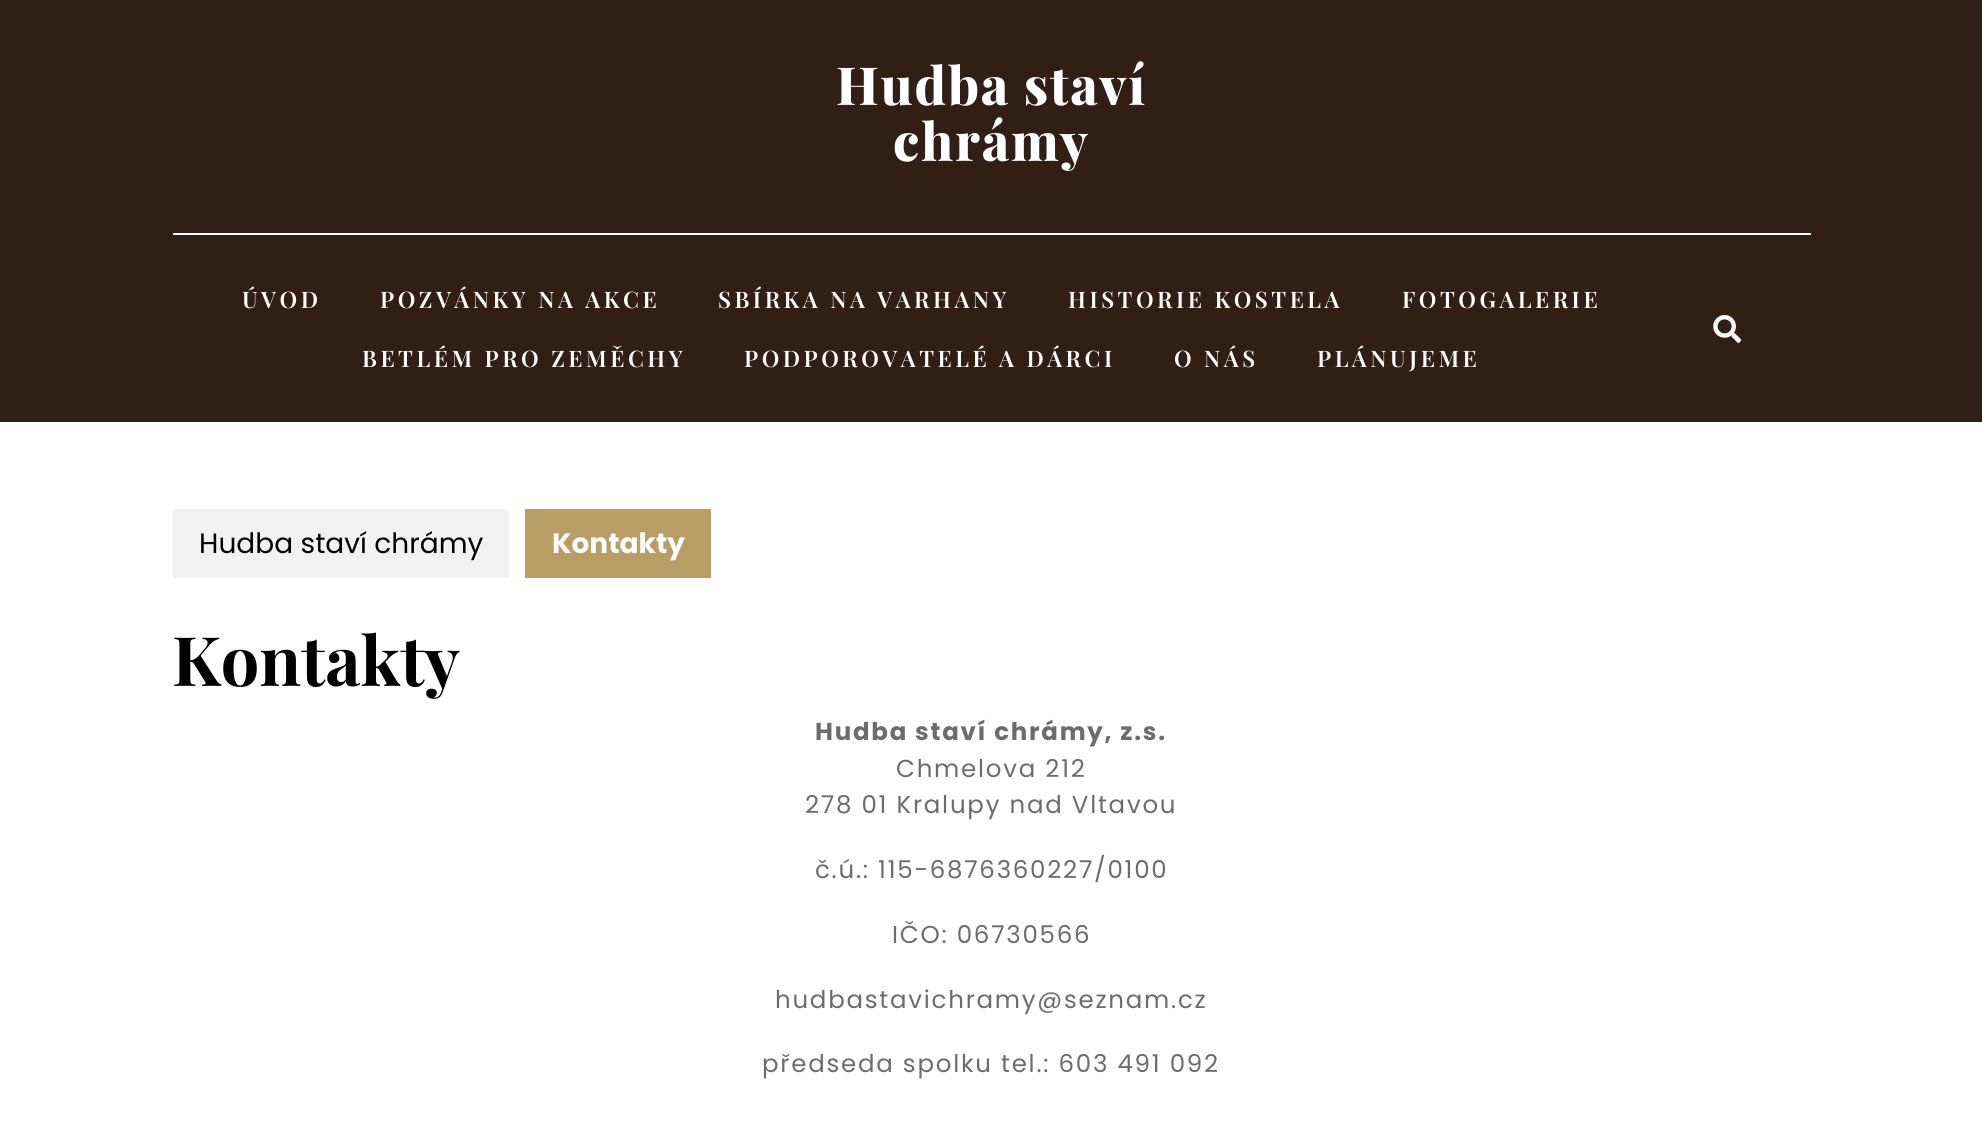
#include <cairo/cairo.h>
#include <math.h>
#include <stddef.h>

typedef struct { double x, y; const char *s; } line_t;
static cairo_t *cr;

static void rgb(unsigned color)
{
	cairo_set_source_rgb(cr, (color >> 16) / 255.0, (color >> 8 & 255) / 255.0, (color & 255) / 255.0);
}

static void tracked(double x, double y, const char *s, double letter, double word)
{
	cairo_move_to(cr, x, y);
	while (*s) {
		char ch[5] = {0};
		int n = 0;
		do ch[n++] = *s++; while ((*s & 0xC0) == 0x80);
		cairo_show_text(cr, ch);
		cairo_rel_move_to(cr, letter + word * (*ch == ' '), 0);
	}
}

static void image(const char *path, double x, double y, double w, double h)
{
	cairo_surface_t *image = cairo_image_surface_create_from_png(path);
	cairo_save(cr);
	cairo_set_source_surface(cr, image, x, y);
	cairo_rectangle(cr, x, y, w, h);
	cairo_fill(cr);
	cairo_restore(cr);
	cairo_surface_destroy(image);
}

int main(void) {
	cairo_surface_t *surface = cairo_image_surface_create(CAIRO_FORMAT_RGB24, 1982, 1123);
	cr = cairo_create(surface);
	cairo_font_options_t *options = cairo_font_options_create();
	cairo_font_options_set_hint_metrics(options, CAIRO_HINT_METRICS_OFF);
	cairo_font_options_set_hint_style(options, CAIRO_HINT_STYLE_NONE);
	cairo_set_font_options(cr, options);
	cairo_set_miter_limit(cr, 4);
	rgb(0xffffff);
	cairo_paint(cr);
	rgb(0x311f15);
	cairo_rectangle(cr, 0, 0, 1982, 422);
	cairo_fill(cr);
	rgb(0xffffff);
	cairo_rectangle(cr, 173, 233, 1638, 2);
	cairo_fill(cr);
	image("img/1.png", 1713, 315, 29, 28);
	rgb(0xf1f1f1);
	cairo_rectangle(cr, 173, 509, 336, 69);
	cairo_fill(cr);
	rgb(0xb89d64);
	cairo_rectangle(cr, 525, 509, 186, 69);
	cairo_fill(cr);
	cairo_select_font_face(cr, "Playfair Display ExtraBold", CAIRO_FONT_SLANT_NORMAL, CAIRO_FONT_WEIGHT_NORMAL);
	cairo_set_font_size(cr, 52.5);
	rgb(0xffffff);
	tracked(836, 105, "Hudba staví", 1.75, 0);
	tracked(893, 161, "chrámy", 1.75, 0);
	cairo_select_font_face(cr, "Playfair Display SemiBold", CAIRO_FONT_SLANT_NORMAL, CAIRO_FONT_WEIGHT_NORMAL);
	cairo_set_font_size(cr, 22.75);
	{
		static const line_t items[] = {
			{242, 308, "ÚVOD"},
			{380, 308, "POZVÁNKY NA AKCE"},
			{718, 308, "SBÍRKA NA VARHANY"},
			{1068, 308, "HISTORIE KOSTELA"},
			{1402, 308, "FOTOGALERIE"},
			{362, 367, "BETLÉM PRO ZEMĚCHY"},
			{744, 367, "PODPOROVATELÉ A DÁRCI"},
			{1174, 367, "O NÁS"},
			{1317, 367, "PLÁNUJEME"},
		};
		for (size_t i = 0; i < sizeof items / sizeof *items; i++) {
			tracked(items[i].x, items[i].y, items[i].s, 3.5, 0);
		}
	}
	cairo_select_font_face(cr, "Poppins", CAIRO_FONT_SLANT_NORMAL, CAIRO_FONT_WEIGHT_NORMAL);
	cairo_set_font_size(cr, 28);
	rgb(0x000000);
	cairo_move_to(cr, 199, 553);
	cairo_show_text(cr, "Hudba staví chrámy");
	cairo_select_font_face(cr, "Poppins", CAIRO_FONT_SLANT_NORMAL, CAIRO_FONT_WEIGHT_BOLD);
	rgb(0xffffff);
	cairo_move_to(cr, 552, 553);
	cairo_show_text(cr, "Kontakty");
	cairo_select_font_face(cr, "Playfair Display", CAIRO_FONT_SLANT_NORMAL, CAIRO_FONT_WEIGHT_BOLD);
	cairo_set_font_size(cr, 68.25);
	rgb(0x000000);
	cairo_move_to(cr, 172, 686);
	cairo_show_text(cr, "Kontakty");
	cairo_select_font_face(cr, "Poppins", CAIRO_FONT_SLANT_NORMAL, CAIRO_FONT_WEIGHT_BOLD);
	cairo_set_font_size(cr, 24.5);
	rgb(0x6c6c6c);
	tracked(815, 740, "Hudba staví chrámy, z.s.", 1.75, 0);
	cairo_select_font_face(cr, "Poppins", CAIRO_FONT_SLANT_NORMAL, CAIRO_FONT_WEIGHT_NORMAL);
	{
		static const line_t items[] = {
			{896, 777, "Chmelova 212"},
			{805, 813, "278 01 Kralupy nad Vltavou"},
			{815, 878, "č.ú.: 115-6876360227/0100"},
			{892, 943, "IČO: 06730566"},
			{775, 1008, "hudbastavichramy@seznam.cz"},
			{762, 1072, "předseda spolku tel.: 603 491 092"},
		};
		for (size_t i = 0; i < sizeof items / sizeof *items; i++) {
			tracked(items[i].x, items[i].y, items[i].s, 1.75, 0);
		}
	}
	cairo_surface_write_to_png(surface, "page.png");
	cairo_font_options_destroy(options);
	cairo_destroy(cr);
	cairo_surface_destroy(surface);
	return 0;
}
